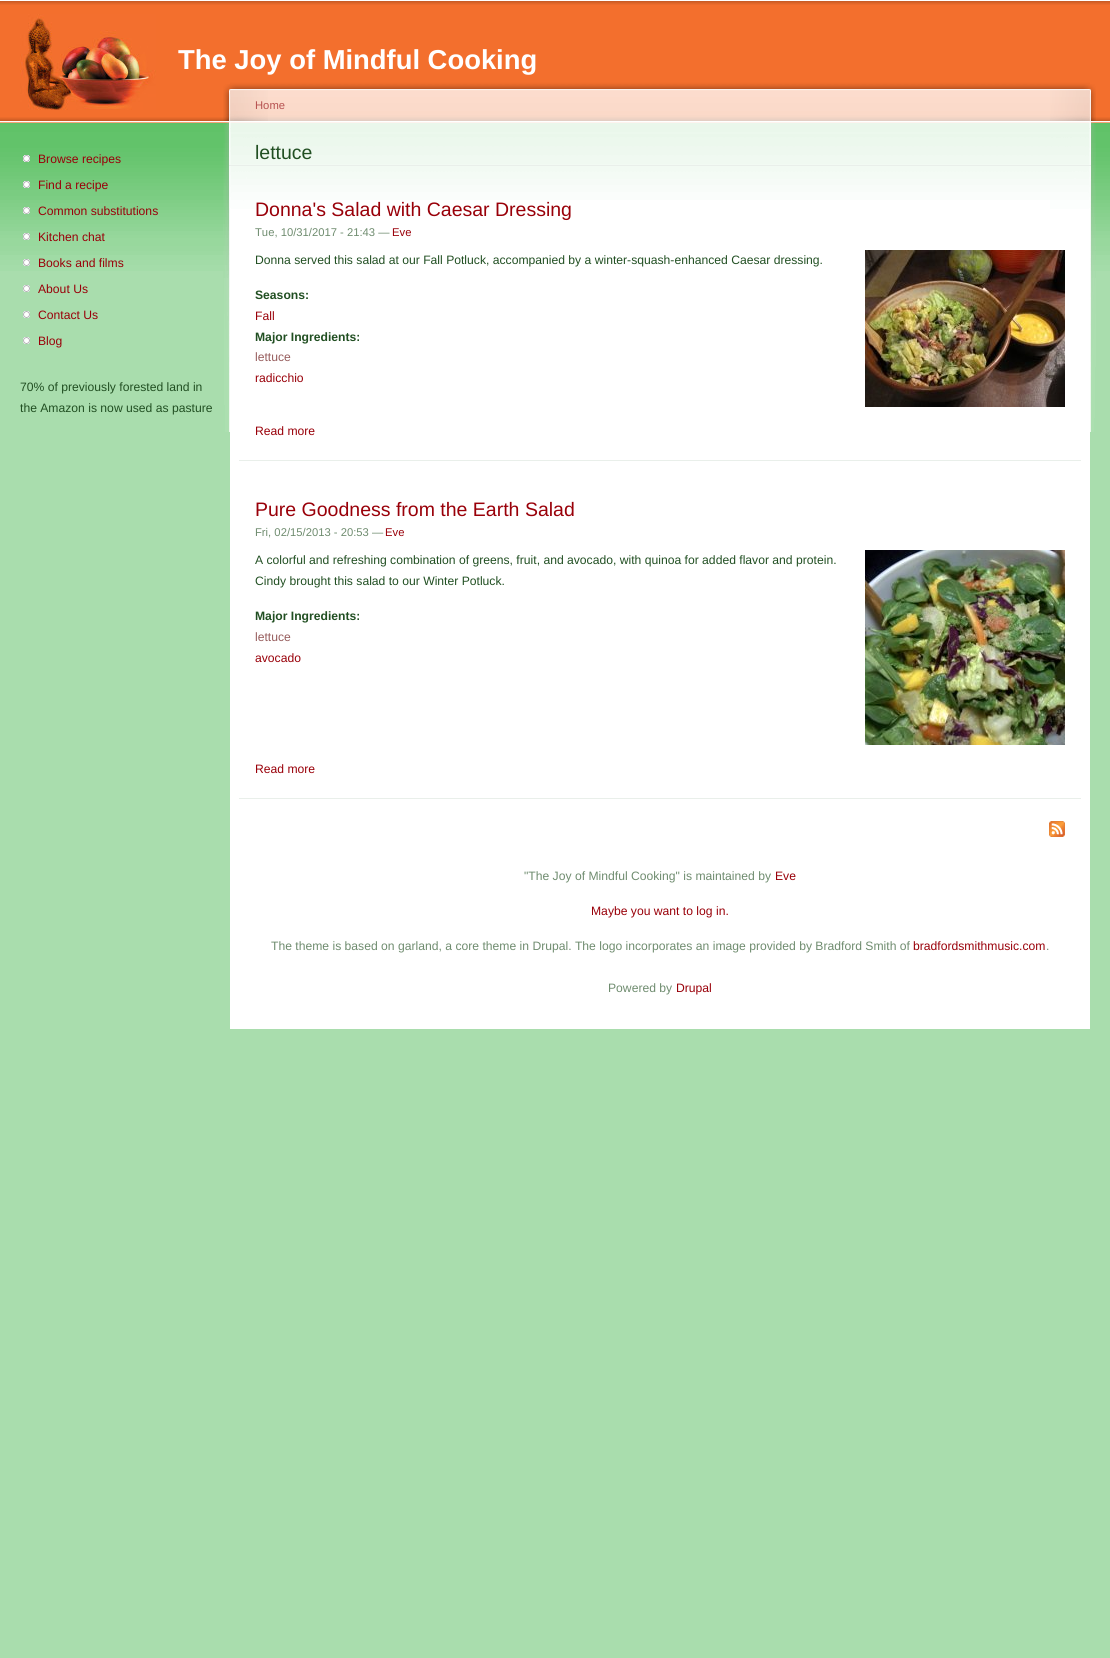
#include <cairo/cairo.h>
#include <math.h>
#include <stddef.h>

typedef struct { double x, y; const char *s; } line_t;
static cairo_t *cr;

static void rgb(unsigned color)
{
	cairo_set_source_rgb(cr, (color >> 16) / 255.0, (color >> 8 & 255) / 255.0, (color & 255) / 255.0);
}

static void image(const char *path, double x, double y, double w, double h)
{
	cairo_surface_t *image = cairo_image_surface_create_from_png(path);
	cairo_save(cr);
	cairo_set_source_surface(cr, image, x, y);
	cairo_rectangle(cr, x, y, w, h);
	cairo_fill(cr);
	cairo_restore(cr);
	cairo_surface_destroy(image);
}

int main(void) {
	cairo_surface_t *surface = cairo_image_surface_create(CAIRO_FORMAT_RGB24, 1110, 1658);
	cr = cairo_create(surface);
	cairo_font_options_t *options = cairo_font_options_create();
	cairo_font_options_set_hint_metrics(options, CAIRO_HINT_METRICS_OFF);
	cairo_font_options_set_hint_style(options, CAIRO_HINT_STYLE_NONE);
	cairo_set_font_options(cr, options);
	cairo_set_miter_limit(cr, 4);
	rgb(0xa9ddad);
	cairo_paint(cr);
	image("img/1.png", 0, 0, 1110, 271);
	image("img/2.png", 20, 14, 136, 96);
	image("img/3.png", 23, 155, 7, 7);
	image("img/4.png", 23, 181, 7, 7);
	image("img/5.png", 23, 207, 7, 7);
	image("img/6.png", 23, 233, 7, 7);
	image("img/7.png", 23, 259, 7, 7);
	image("img/8.png", 23, 285, 7, 7);
	image("img/8.png", 23, 311, 7, 7);
	image("img/8.png", 23, 337, 7, 7);
	rgb(0xffffff);
	cairo_rectangle(cr, 230, 200, 860, 829);
	cairo_fill(cr);
	image("img/9.png", 230, 80, 860, 120);
	image("img/10.png", 1050, 84, 46, 348);
	image("img/11.png", 223, 84, 45, 348);
	rgb(0xe9efea);
	cairo_rectangle(cr, 229, 165, 862, 1);
	cairo_fill(cr);
	cairo_rectangle(cr, 239, 460, 842, 1);
	cairo_fill(cr);
	image("img/12.png", 865, 250, 200, 157);
	cairo_rectangle(cr, 239, 798, 842, 1);
	cairo_fill(cr);
	image("img/13.png", 865, 550, 200, 195);
	image("img/14.png", 1049, 821, 16, 16);
	cairo_select_font_face(cr, "Liberation Sans", CAIRO_FONT_SLANT_NORMAL, CAIRO_FONT_WEIGHT_BOLD);
	cairo_set_font_size(cr, 27.4);
	rgb(0xffffff);
	cairo_move_to(cr, 178, 69);
	cairo_show_text(cr, "The Joy of Mindful Cooking");
	cairo_select_font_face(cr, "Liberation Sans", CAIRO_FONT_SLANT_NORMAL, CAIRO_FONT_WEIGHT_NORMAL);
	cairo_set_font_size(cr, 12.15);
	rgb(0x990009);
	{
		static const line_t items[] = {
			{38, 163, "Browse recipes"},
			{38, 189, "Find a recipe"},
			{38, 215, "Common substitutions"},
			{38, 241, "Kitchen chat"},
			{38, 267, "Books and films"},
			{38, 293, "About Us"},
			{38, 319, "Contact Us"},
			{38, 345, "Blog"},
		};
		for (size_t i = 0; i < sizeof items / sizeof *items; i++) {
			cairo_move_to(cr, items[i].x, items[i].y);
			cairo_show_text(cr, items[i].s);
		}
	}
	rgb(0x214f22);
	cairo_move_to(cr, 20, 391);
	cairo_show_text(cr, "70% of previously forested land in");
	cairo_move_to(cr, 20, 412);
	cairo_show_text(cr, "the Amazon is now used as pasture");
	cairo_set_font_size(cr, 11.25);
	rgb(0xb65150);
	cairo_move_to(cr, 255, 109);
	cairo_show_text(cr, "Home");
	cairo_set_font_size(cr, 19.5);
	rgb(0x214f22);
	cairo_move_to(cr, 255, 159);
	cairo_show_text(cr, "lettuce");
	rgb(0x990009);
	cairo_move_to(cr, 255, 216);
	cairo_show_text(cr, "Donna's Salad with Caesar Dressing");
	cairo_set_font_size(cr, 11.25);
	rgb(0x6f8c6f);
	cairo_move_to(cr, 255, 236);
	cairo_show_text(cr, "Tue, 10/31/2017 - 21:43 —");
	rgb(0x990009);
	cairo_move_to(cr, 392, 236);
	cairo_show_text(cr, "Eve");
	cairo_set_font_size(cr, 12.15);
	rgb(0x214f22);
	cairo_move_to(cr, 255, 264);
	cairo_show_text(cr, "Donna served this salad at our Fall Potluck, accompanied by a winter-squash-enhanced Caesar dressing.");
	cairo_select_font_face(cr, "Liberation Sans", CAIRO_FONT_SLANT_NORMAL, CAIRO_FONT_WEIGHT_BOLD);
	cairo_move_to(cr, 255, 299);
	cairo_show_text(cr, "Seasons:");
	cairo_select_font_face(cr, "Liberation Sans", CAIRO_FONT_SLANT_NORMAL, CAIRO_FONT_WEIGHT_NORMAL);
	rgb(0x990009);
	cairo_move_to(cr, 255, 320);
	cairo_show_text(cr, "Fall");
	cairo_select_font_face(cr, "Liberation Sans", CAIRO_FONT_SLANT_NORMAL, CAIRO_FONT_WEIGHT_BOLD);
	rgb(0x214f22);
	cairo_move_to(cr, 255, 341);
	cairo_show_text(cr, "Major Ingredients:");
	cairo_select_font_face(cr, "Liberation Sans", CAIRO_FONT_SLANT_NORMAL, CAIRO_FONT_WEIGHT_NORMAL);
	rgb(0x975d5d);
	cairo_move_to(cr, 255, 361);
	cairo_show_text(cr, "lettuce");
	rgb(0x990009);
	cairo_move_to(cr, 255, 382);
	cairo_show_text(cr, "radicchio");
	cairo_move_to(cr, 255, 435);
	cairo_show_text(cr, "Read more");
	cairo_set_font_size(cr, 19.5);
	cairo_move_to(cr, 255, 516);
	cairo_show_text(cr, "Pure Goodness from the Earth Salad");
	cairo_set_font_size(cr, 11.25);
	rgb(0x6f8c6f);
	cairo_move_to(cr, 255, 536);
	cairo_show_text(cr, "Fri, 02/15/2013 - 20:53 —");
	rgb(0x990009);
	cairo_move_to(cr, 385, 536);
	cairo_show_text(cr, "Eve");
	cairo_set_font_size(cr, 12.15);
	rgb(0x214f22);
	cairo_move_to(cr, 255, 564);
	cairo_show_text(cr, "A colorful and refreshing combination of greens, fruit, and avocado, with quinoa for added flavor and protein.");
	cairo_move_to(cr, 255, 585);
	cairo_show_text(cr, "Cindy brought this salad to our Winter Potluck.");
	cairo_select_font_face(cr, "Liberation Sans", CAIRO_FONT_SLANT_NORMAL, CAIRO_FONT_WEIGHT_BOLD);
	cairo_move_to(cr, 255, 620);
	cairo_show_text(cr, "Major Ingredients:");
	cairo_select_font_face(cr, "Liberation Sans", CAIRO_FONT_SLANT_NORMAL, CAIRO_FONT_WEIGHT_NORMAL);
	rgb(0x975d5d);
	cairo_move_to(cr, 255, 641);
	cairo_show_text(cr, "lettuce");
	rgb(0x990009);
	cairo_move_to(cr, 255, 662);
	cairo_show_text(cr, "avocado");
	cairo_move_to(cr, 255, 773);
	cairo_show_text(cr, "Read more");
	rgb(0x6f8c6f);
	cairo_move_to(cr, 524, 880);
	cairo_show_text(cr, "\"The Joy of Mindful Cooking\" is maintained by");
	rgb(0x990009);
	cairo_move_to(cr, 775, 880);
	cairo_show_text(cr, "Eve");
	cairo_move_to(cr, 591, 915);
	cairo_show_text(cr, "Maybe you want to log in.");
	rgb(0x6f8c6f);
	cairo_move_to(cr, 271, 950);
	cairo_show_text(cr, "The theme is based on garland, a core theme in Drupal. The logo incorporates an image provided by Bradford Smith of");
	rgb(0x990009);
	cairo_move_to(cr, 913, 950);
	cairo_show_text(cr, "bradfordsmithmusic.com");
	rgb(0x6f8c6f);
	cairo_move_to(cr, 1046, 950);
	cairo_show_text(cr, ".");
	cairo_move_to(cr, 608, 992);
	cairo_show_text(cr, "Powered by");
	rgb(0x990009);
	cairo_move_to(cr, 676, 992);
	cairo_show_text(cr, "Drupal");
	cairo_surface_write_to_png(surface, "page.png");
	cairo_font_options_destroy(options);
	cairo_destroy(cr);
	cairo_surface_destroy(surface);
	return 0;
}
